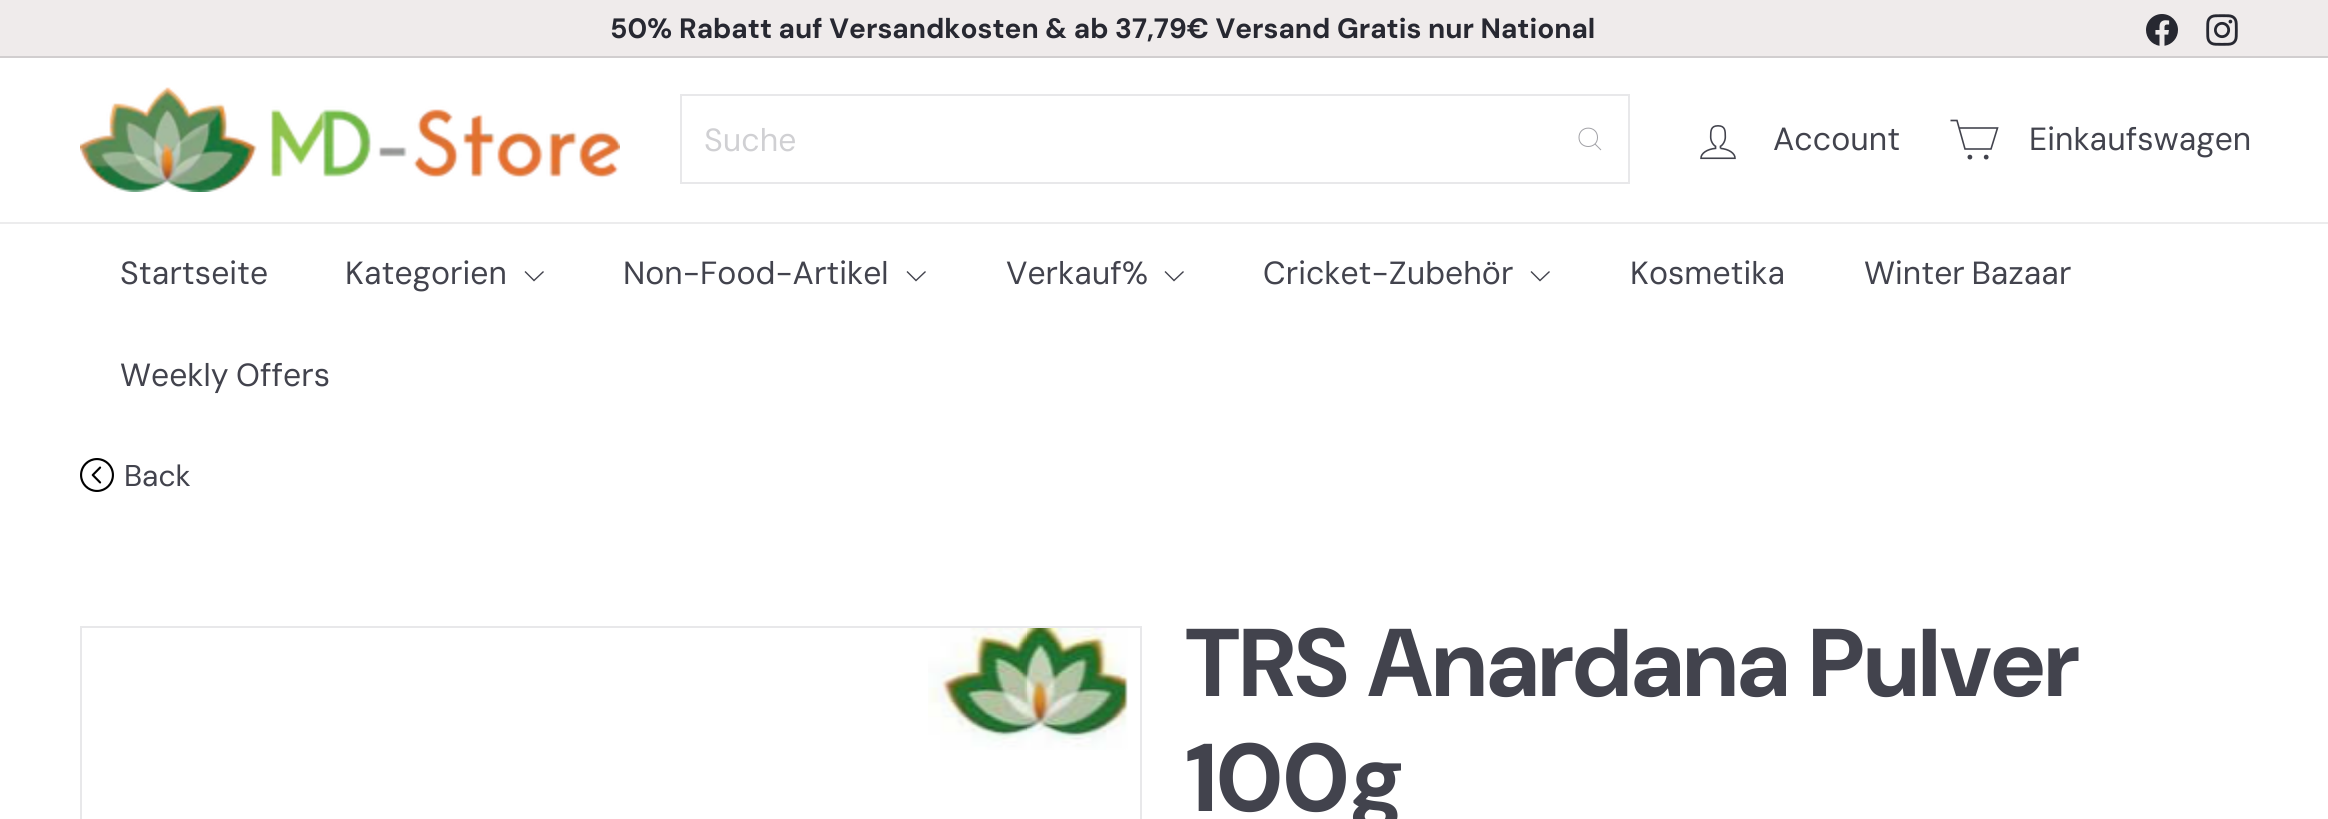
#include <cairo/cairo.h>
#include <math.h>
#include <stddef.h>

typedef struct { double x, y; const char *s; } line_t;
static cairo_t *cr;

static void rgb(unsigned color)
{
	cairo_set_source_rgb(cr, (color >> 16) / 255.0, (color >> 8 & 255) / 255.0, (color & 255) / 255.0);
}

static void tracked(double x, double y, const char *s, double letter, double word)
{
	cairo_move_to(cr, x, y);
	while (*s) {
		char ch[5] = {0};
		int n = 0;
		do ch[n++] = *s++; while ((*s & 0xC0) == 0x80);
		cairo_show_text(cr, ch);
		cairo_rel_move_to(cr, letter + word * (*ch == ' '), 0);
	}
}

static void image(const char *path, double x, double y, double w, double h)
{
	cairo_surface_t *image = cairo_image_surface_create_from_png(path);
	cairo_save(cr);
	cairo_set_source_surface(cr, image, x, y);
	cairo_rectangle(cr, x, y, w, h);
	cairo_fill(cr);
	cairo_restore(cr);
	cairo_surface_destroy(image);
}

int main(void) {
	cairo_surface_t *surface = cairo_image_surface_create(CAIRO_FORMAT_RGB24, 2328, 819);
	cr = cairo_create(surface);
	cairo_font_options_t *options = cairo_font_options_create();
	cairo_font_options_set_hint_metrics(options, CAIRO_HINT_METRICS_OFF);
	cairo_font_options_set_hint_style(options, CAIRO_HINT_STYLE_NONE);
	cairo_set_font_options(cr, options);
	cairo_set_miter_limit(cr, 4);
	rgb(0xffffff);
	cairo_paint(cr);
	rgb(0xefebeb);
	cairo_rectangle(cr, 0, 0, 2328, 56);
	cairo_fill(cr);
	image("img/1.png", 2146, 14, 32, 32);
	image("img/2.png", 2206, 14, 32, 32);
	rgb(0xd1cecf);
	cairo_rectangle(cr, 0, 56, 2328, 2);
	cairo_fill(cr);
	image("img/3.png", 80, 87, 540, 105);
	cairo_rectangle(cr, 681, 95, 948, 88);
	rgb(0xe8e8ea);
	cairo_stroke(cr);
	cairo_new_path(cr);
	cairo_move_to(cr, 1597.5, 137.5);
	cairo_curve_to(cr, 1597.5, 149.5, 1579, 149.5, 1579, 137.5);
	cairo_curve_to(cr, 1579, 125, 1597.5, 125, 1597.5, 137.5);
	cairo_move_to(cr, 1601, 150);
	cairo_line_to(cr, 1595, 144);
	rgb(0xa1a1a6);
	cairo_set_line_width(cr, 1);
	cairo_stroke(cr);
	image("img/4.png", 1700, 125, 36, 35);
	cairo_new_path(cr);
	cairo_move_to(cr, 1959.5, 128);
	cairo_line_to(cr, 1997.5, 128);
	cairo_line_to(cr, 1991, 149);
	cairo_line_to(cr, 1965, 149);
	cairo_line_to(cr, 1957, 120.5);
	cairo_line_to(cr, 1950.5, 120.5);
	rgb(0x42434d);
	cairo_set_line_width(cr, 1.6);
	cairo_stroke(cr);
	cairo_arc(cr, 1969.9, 157.1, 1.6, 0, 2 * M_PI);
	cairo_fill_preserve(cr);
	cairo_stroke(cr);
	cairo_arc(cr, 1986.2, 157.1, 1.6, 0, 2 * M_PI);
	cairo_fill_preserve(cr);
	cairo_stroke(cr);
	rgb(0xececed);
	cairo_rectangle(cr, 0, 222, 2328, 2);
	cairo_fill(cr);
	cairo_new_path(cr);
	cairo_move_to(cr, 525, 271.5);
	cairo_line_to(cr, 534, 280.5);
	cairo_line_to(cr, 543.5, 271.5);
	rgb(0x42434d);
	cairo_set_line_width(cr, 1.4);
	cairo_stroke(cr);
	cairo_new_path(cr);
	cairo_move_to(cr, 907, 271.5);
	cairo_line_to(cr, 916, 280.5);
	cairo_line_to(cr, 925.5, 271.5);
	cairo_stroke(cr);
	cairo_new_path(cr);
	cairo_move_to(cr, 1165, 271.5);
	cairo_line_to(cr, 1174, 280.5);
	cairo_line_to(cr, 1183.5, 271.5);
	cairo_stroke(cr);
	cairo_new_path(cr);
	cairo_move_to(cr, 1531, 271.5);
	cairo_line_to(cr, 1540, 280.5);
	cairo_line_to(cr, 1549.5, 271.5);
	cairo_stroke(cr);
	image("img/5.png", 80, 458, 34, 34);
	cairo_rectangle(cr, 81, 627, 1060, 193);
	rgb(0xe8e8ea);
	cairo_set_line_width(cr, 2);
	cairo_stroke(cr);
	image("img/6.png", 928, 628, 200, 122);
	cairo_select_font_face(cr, "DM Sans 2", CAIRO_FONT_SLANT_NORMAL, CAIRO_FONT_WEIGHT_BOLD);
	cairo_set_font_size(cr, 28);
	rgb(0x272831);
	cairo_move_to(cr, 610, 38);
	cairo_show_text(cr, "50% Rabatt auf Versandkosten & ab 37,79€ Versand Gratis nur National");
	cairo_select_font_face(cr, "DM Sans 2", CAIRO_FONT_SLANT_NORMAL, CAIRO_FONT_WEIGHT_NORMAL);
	cairo_set_font_size(cr, 32);
	rgb(0xd0d0d3);
	cairo_move_to(cr, 704, 151);
	cairo_show_text(cr, "Suche");
	rgb(0x42434d);
	{
		static const line_t items[] = {
			{1773, 150, "Account"},
			{2029, 150, "Einkaufswagen"},
			{120, 284, "Startseite"},
			{345, 284, "Kategorien"},
			{623, 284, "Non-Food-Artikel"},
			{1006, 284, "Verkauf%"},
			{1263, 284, "Cricket-Zubehör"},
			{1630, 284, "Kosmetika"},
		};
		for (size_t i = 0; i < sizeof items / sizeof *items; i++) {
			cairo_move_to(cr, items[i].x, items[i].y);
			cairo_show_text(cr, items[i].s);
		}
	}
	tracked(1864, 284, "Winter Bazaar", 0, -2);
	tracked(120, 386, "Weekly Offers", 0, -1);
	cairo_select_font_face(cr, "DM Sans", CAIRO_FONT_SLANT_NORMAL, CAIRO_FONT_WEIGHT_NORMAL);
	cairo_set_font_size(cr, 30);
	cairo_move_to(cr, 124, 486);
	cairo_show_text(cr, "Back");
	cairo_select_font_face(cr, "DM Sans", CAIRO_FONT_SLANT_NORMAL, CAIRO_FONT_WEIGHT_BOLD);
	cairo_set_font_size(cr, 96);
	cairo_move_to(cr, 1186, 696);
	cairo_show_text(cr, "TRS Anardana Pulver");
	cairo_move_to(cr, 1186, 811);
	cairo_show_text(cr, "100g");
	cairo_surface_write_to_png(surface, "page.png");
	cairo_font_options_destroy(options);
	cairo_destroy(cr);
	cairo_surface_destroy(surface);
	return 0;
}
